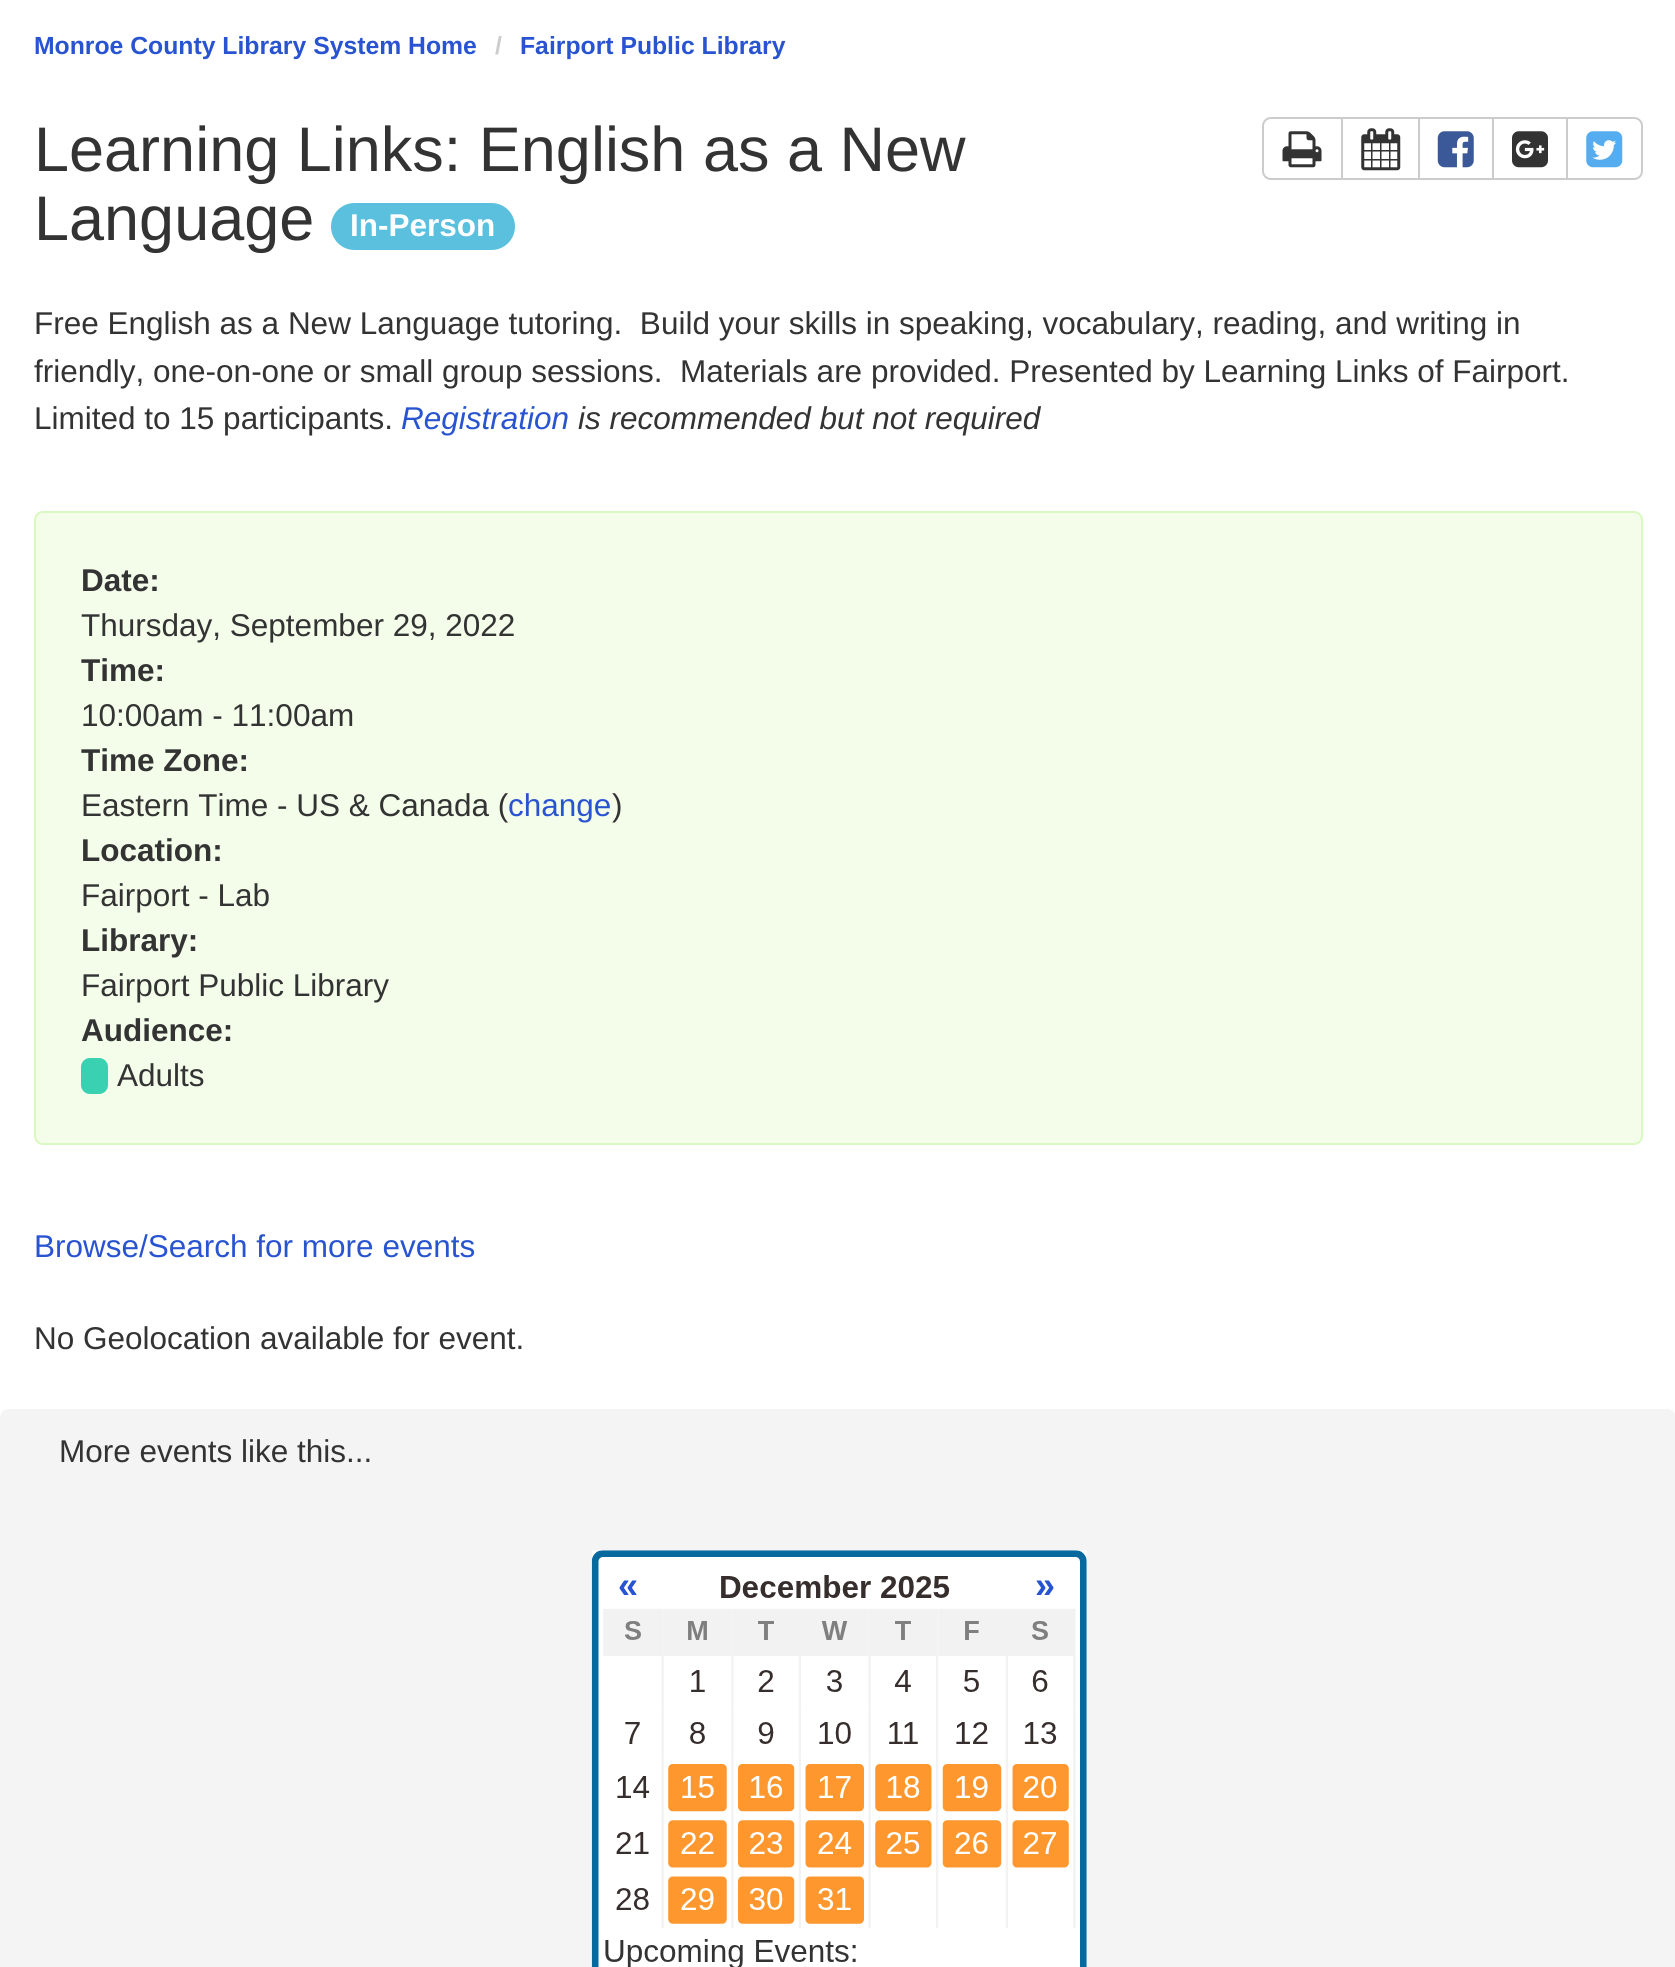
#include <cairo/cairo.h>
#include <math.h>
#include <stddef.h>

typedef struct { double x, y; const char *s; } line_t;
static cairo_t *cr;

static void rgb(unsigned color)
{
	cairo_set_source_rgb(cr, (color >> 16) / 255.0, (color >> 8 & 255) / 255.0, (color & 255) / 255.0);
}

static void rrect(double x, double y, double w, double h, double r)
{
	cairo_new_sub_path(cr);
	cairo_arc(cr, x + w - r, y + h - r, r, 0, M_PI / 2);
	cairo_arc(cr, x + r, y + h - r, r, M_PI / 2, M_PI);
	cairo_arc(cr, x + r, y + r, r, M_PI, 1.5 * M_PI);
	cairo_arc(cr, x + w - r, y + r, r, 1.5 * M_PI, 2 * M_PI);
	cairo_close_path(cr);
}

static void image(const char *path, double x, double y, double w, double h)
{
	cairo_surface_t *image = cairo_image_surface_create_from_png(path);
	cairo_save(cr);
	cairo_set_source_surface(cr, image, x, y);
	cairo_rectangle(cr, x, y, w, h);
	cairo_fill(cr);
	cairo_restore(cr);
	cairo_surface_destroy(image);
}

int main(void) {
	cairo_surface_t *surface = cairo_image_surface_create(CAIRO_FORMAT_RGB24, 1675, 1967);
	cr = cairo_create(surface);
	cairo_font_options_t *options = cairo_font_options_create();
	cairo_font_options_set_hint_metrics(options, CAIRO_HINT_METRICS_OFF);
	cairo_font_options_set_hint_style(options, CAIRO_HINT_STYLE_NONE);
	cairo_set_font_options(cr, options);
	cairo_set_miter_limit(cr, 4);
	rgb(0xffffff);
	cairo_paint(cr);
	rgb(0x5bc0de);
	rrect(331, 203, 184, 47, 23.5);
	cairo_fill(cr);
	cairo_new_path(cr);
	cairo_move_to(cr, 1271, 118);
	cairo_line_to(cr, 1342, 118);
	cairo_line_to(cr, 1342, 179);
	cairo_line_to(cr, 1271, 179);
	cairo_curve_to(cr, 1266.5, 179, 1263, 175.5, 1263, 171);
	cairo_line_to(cr, 1263, 126);
	cairo_curve_to(cr, 1263, 121.5, 1266.5, 118, 1271, 118);
	cairo_close_path(cr);
	rgb(0xcccccc);
	cairo_stroke(cr);
	image("img/1.png", 1282, 131, 40, 37);
	cairo_rectangle(cr, 1342, 118, 77, 61);
	cairo_stroke(cr);
	image("img/2.png", 1361, 128, 40, 43);
	cairo_rectangle(cr, 1419, 118, 74, 61);
	cairo_stroke(cr);
	image("img/3.png", 1437, 131, 37, 37);
	cairo_rectangle(cr, 1493, 118, 74, 61);
	cairo_stroke(cr);
	image("img/4.png", 1512, 131, 36, 37);
	rgb(0xffffff);
	cairo_new_path(cr);
	cairo_move_to(cr, 1567, 118);
	cairo_line_to(cr, 1634, 118);
	cairo_curve_to(cr, 1638.5, 118, 1642, 121.5, 1642, 126);
	cairo_line_to(cr, 1642, 171);
	cairo_curve_to(cr, 1642, 175.5, 1638.5, 179, 1634, 179);
	cairo_line_to(cr, 1567, 179);
	cairo_close_path(cr);
	cairo_fill_preserve(cr);
	rgb(0xcccccc);
	cairo_stroke(cr);
	image("img/5.png", 1586, 131, 37, 37);
	rgb(0xf3fdea);
	rrect(35, 512, 1607, 632, 8);
	cairo_fill_preserve(cr);
	rgb(0xdaf9c2);
	cairo_stroke(cr);
	rgb(0x3ad1b3);
	rrect(81, 1058, 27, 36, 9);
	cairo_fill(cr);
	rgb(0xf4f4f4);
	rrect(0, 1409, 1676, 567, 9);
	cairo_fill(cr);
	image("img/6.png", 591, 1550, 496, 417);
	cairo_select_font_face(cr, "Liberation Sans", CAIRO_FONT_SLANT_NORMAL, CAIRO_FONT_WEIGHT_BOLD);
	cairo_set_font_size(cr, 24.75);
	rgb(0x2954d1);
	cairo_move_to(cr, 34, 54);
	cairo_show_text(cr, "Monroe County Library System Home");
	rgb(0xcccccc);
	cairo_move_to(cr, 495, 54);
	cairo_show_text(cr, "/");
	rgb(0x2954d1);
	cairo_move_to(cr, 520, 54);
	cairo_show_text(cr, "Fairport Public Library");
	cairo_select_font_face(cr, "Liberation Sans", CAIRO_FONT_SLANT_NORMAL, CAIRO_FONT_WEIGHT_NORMAL);
	cairo_set_font_size(cr, 63);
	rgb(0x333333);
	cairo_move_to(cr, 34, 171);
	cairo_show_text(cr, "Learning Links: English as a New");
	cairo_move_to(cr, 34, 240);
	cairo_show_text(cr, "Language");
	cairo_select_font_face(cr, "Liberation Sans", CAIRO_FONT_SLANT_NORMAL, CAIRO_FONT_WEIGHT_BOLD);
	cairo_set_font_size(cr, 31.5);
	rgb(0xffffff);
	cairo_move_to(cr, 350, 236);
	cairo_show_text(cr, "In-Person");
	cairo_select_font_face(cr, "Liberation Sans", CAIRO_FONT_SLANT_NORMAL, CAIRO_FONT_WEIGHT_NORMAL);
	rgb(0x333333);
	{
		static const line_t items[] = {
			{34, 334, "Free English as a New Language tutoring.  Build your skills in speaking, vocabulary, reading, and writing in"},
			{34, 382, "friendly, one-on-one or small group sessions.  Materials are provided. Presented by Learning Links of Fairport."},
			{34, 429, "Limited to 15 participants."},
		};
		for (size_t i = 0; i < sizeof items / sizeof *items; i++) {
			cairo_move_to(cr, items[i].x, items[i].y);
			cairo_show_text(cr, items[i].s);
		}
	}
	cairo_select_font_face(cr, "Liberation Sans", CAIRO_FONT_SLANT_ITALIC, CAIRO_FONT_WEIGHT_NORMAL);
	rgb(0x2954d1);
	cairo_move_to(cr, 401, 429);
	cairo_show_text(cr, "Registration");
	rgb(0x333333);
	cairo_move_to(cr, 578, 429);
	cairo_show_text(cr, "is recommended but not required");
	cairo_select_font_face(cr, "Liberation Sans", CAIRO_FONT_SLANT_NORMAL, CAIRO_FONT_WEIGHT_BOLD);
	cairo_move_to(cr, 81, 591);
	cairo_show_text(cr, "Date:");
	cairo_select_font_face(cr, "Liberation Sans", CAIRO_FONT_SLANT_NORMAL, CAIRO_FONT_WEIGHT_NORMAL);
	cairo_move_to(cr, 81, 636);
	cairo_show_text(cr, "Thursday, September 29, 2022");
	cairo_select_font_face(cr, "Liberation Sans", CAIRO_FONT_SLANT_NORMAL, CAIRO_FONT_WEIGHT_BOLD);
	cairo_move_to(cr, 81, 681);
	cairo_show_text(cr, "Time:");
	cairo_select_font_face(cr, "Liberation Sans", CAIRO_FONT_SLANT_NORMAL, CAIRO_FONT_WEIGHT_NORMAL);
	cairo_move_to(cr, 81, 726);
	cairo_show_text(cr, "10:00am - 11:00am");
	cairo_select_font_face(cr, "Liberation Sans", CAIRO_FONT_SLANT_NORMAL, CAIRO_FONT_WEIGHT_BOLD);
	cairo_move_to(cr, 81, 771);
	cairo_show_text(cr, "Time Zone:");
	cairo_select_font_face(cr, "Liberation Sans", CAIRO_FONT_SLANT_NORMAL, CAIRO_FONT_WEIGHT_NORMAL);
	cairo_move_to(cr, 81, 816);
	cairo_show_text(cr, "Eastern Time - US & Canada (");
	rgb(0x2954d1);
	cairo_move_to(cr, 508, 816);
	cairo_show_text(cr, "change");
	rgb(0x333333);
	cairo_move_to(cr, 612, 816);
	cairo_show_text(cr, ")");
	cairo_select_font_face(cr, "Liberation Sans", CAIRO_FONT_SLANT_NORMAL, CAIRO_FONT_WEIGHT_BOLD);
	cairo_move_to(cr, 81, 861);
	cairo_show_text(cr, "Location:");
	cairo_select_font_face(cr, "Liberation Sans", CAIRO_FONT_SLANT_NORMAL, CAIRO_FONT_WEIGHT_NORMAL);
	cairo_move_to(cr, 81, 906);
	cairo_show_text(cr, "Fairport - Lab");
	cairo_select_font_face(cr, "Liberation Sans", CAIRO_FONT_SLANT_NORMAL, CAIRO_FONT_WEIGHT_BOLD);
	cairo_move_to(cr, 81, 951);
	cairo_show_text(cr, "Library:");
	cairo_select_font_face(cr, "Liberation Sans", CAIRO_FONT_SLANT_NORMAL, CAIRO_FONT_WEIGHT_NORMAL);
	cairo_move_to(cr, 81, 996);
	cairo_show_text(cr, "Fairport Public Library");
	cairo_select_font_face(cr, "Liberation Sans", CAIRO_FONT_SLANT_NORMAL, CAIRO_FONT_WEIGHT_BOLD);
	cairo_move_to(cr, 81, 1041);
	cairo_show_text(cr, "Audience:");
	cairo_select_font_face(cr, "Liberation Sans", CAIRO_FONT_SLANT_NORMAL, CAIRO_FONT_WEIGHT_NORMAL);
	cairo_move_to(cr, 117, 1086);
	cairo_show_text(cr, "Adults");
	rgb(0x2954d1);
	cairo_move_to(cr, 34, 1257);
	cairo_show_text(cr, "Browse/Search for more events");
	rgb(0x333333);
	cairo_move_to(cr, 34, 1349);
	cairo_show_text(cr, "No Geolocation available for event.");
	cairo_move_to(cr, 59, 1462);
	cairo_show_text(cr, "More events like this...");
	cairo_surface_write_to_png(surface, "page.png");
	cairo_font_options_destroy(options);
	cairo_destroy(cr);
	cairo_surface_destroy(surface);
	return 0;
}
